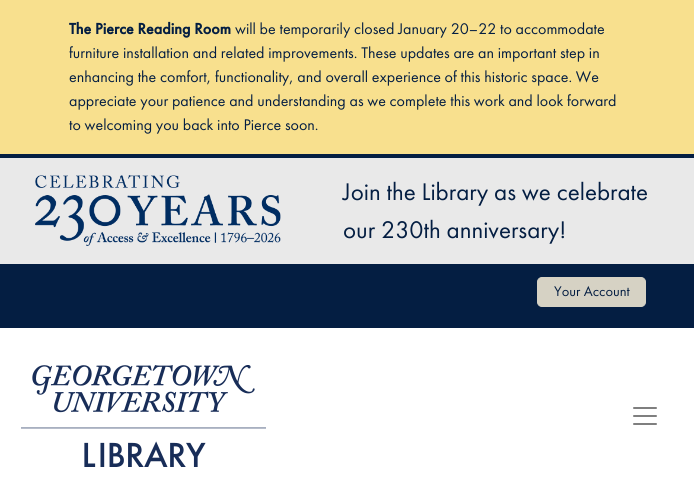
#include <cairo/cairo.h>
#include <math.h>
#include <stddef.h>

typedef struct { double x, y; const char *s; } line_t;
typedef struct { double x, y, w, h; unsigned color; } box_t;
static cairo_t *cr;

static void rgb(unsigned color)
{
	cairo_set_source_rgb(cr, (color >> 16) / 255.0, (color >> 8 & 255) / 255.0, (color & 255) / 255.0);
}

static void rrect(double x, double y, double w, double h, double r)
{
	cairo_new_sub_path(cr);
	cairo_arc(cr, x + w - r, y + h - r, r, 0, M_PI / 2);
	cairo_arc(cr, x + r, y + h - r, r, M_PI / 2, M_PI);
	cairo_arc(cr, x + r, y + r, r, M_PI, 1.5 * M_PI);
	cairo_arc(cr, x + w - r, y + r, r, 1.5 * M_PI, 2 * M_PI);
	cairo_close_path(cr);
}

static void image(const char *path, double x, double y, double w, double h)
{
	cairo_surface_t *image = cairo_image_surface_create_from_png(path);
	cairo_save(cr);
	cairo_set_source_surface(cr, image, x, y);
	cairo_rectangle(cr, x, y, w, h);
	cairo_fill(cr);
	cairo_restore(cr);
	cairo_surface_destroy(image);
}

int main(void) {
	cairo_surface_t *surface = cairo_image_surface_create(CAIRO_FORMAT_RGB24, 694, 492);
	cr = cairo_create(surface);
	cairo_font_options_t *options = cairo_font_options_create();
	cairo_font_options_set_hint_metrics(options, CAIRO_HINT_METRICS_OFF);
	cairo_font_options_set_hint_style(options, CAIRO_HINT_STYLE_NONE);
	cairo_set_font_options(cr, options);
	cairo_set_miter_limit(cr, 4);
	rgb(0xffffff);
	cairo_paint(cr);
	{
		static const box_t items[] = {
			{0, 154, 694, 174, 0x041e42},
			{0, 0, 694, 154, 0xf8e08e},
			{0, 158, 694, 106, 0xe9e9e9},
		};
		for (size_t i = 0; i < sizeof items / sizeof *items; i++) {
			rgb(items[i].color);
			cairo_rectangle(cr, items[i].x, items[i].y, items[i].w, items[i].h);
			cairo_fill(cr);
		}
	}
	image("img/1.png", 35, 175, 246, 71);
	rgb(0xd6d2c4);
	rrect(537.5, 277.5, 108, 29, 4.5);
	cairo_fill_preserve(cr);
	cairo_set_line_width(cr, 1);
	cairo_stroke(cr);
	image("img/2.png", 21, 365, 245, 102);
	image("img/3.png", 633, 407, 24, 18);
	cairo_select_font_face(cr, "Futura PT", CAIRO_FONT_SLANT_NORMAL, CAIRO_FONT_WEIGHT_BOLD);
	cairo_set_font_size(cr, 16);
	rgb(0x041e42);
	cairo_move_to(cr, 69, 34);
	cairo_show_text(cr, "The Pierce Reading Room");
	cairo_select_font_face(cr, "Futura PT", CAIRO_FONT_SLANT_NORMAL, CAIRO_FONT_WEIGHT_NORMAL);
	{
		static const line_t items[] = {
			{235, 34, "will be temporarily closed January 20–22 to accommodate"},
			{69, 58, "furniture installation and related improvements. These updates are an important step in"},
			{69, 82, "enhancing the comfort, functionality, and overall experience of this historic space. We"},
			{69, 106, "appreciate your patience and understanding as we complete this work and look forward"},
			{69, 130, "to welcoming you back into Pierce soon."},
		};
		for (size_t i = 0; i < sizeof items / sizeof *items; i++) {
			cairo_move_to(cr, items[i].x, items[i].y);
			cairo_show_text(cr, items[i].s);
		}
	}
	cairo_set_font_size(cr, 25);
	cairo_move_to(cr, 343, 200);
	cairo_show_text(cr, "Join the Library as we celebrate");
	cairo_move_to(cr, 343, 238);
	cairo_show_text(cr, "our 230th anniversary!");
	cairo_set_font_size(cr, 14.5);
	cairo_move_to(cr, 554, 296);
	cairo_show_text(cr, "Your Account");
	cairo_surface_write_to_png(surface, "page.png");
	cairo_font_options_destroy(options);
	cairo_destroy(cr);
	cairo_surface_destroy(surface);
	return 0;
}
